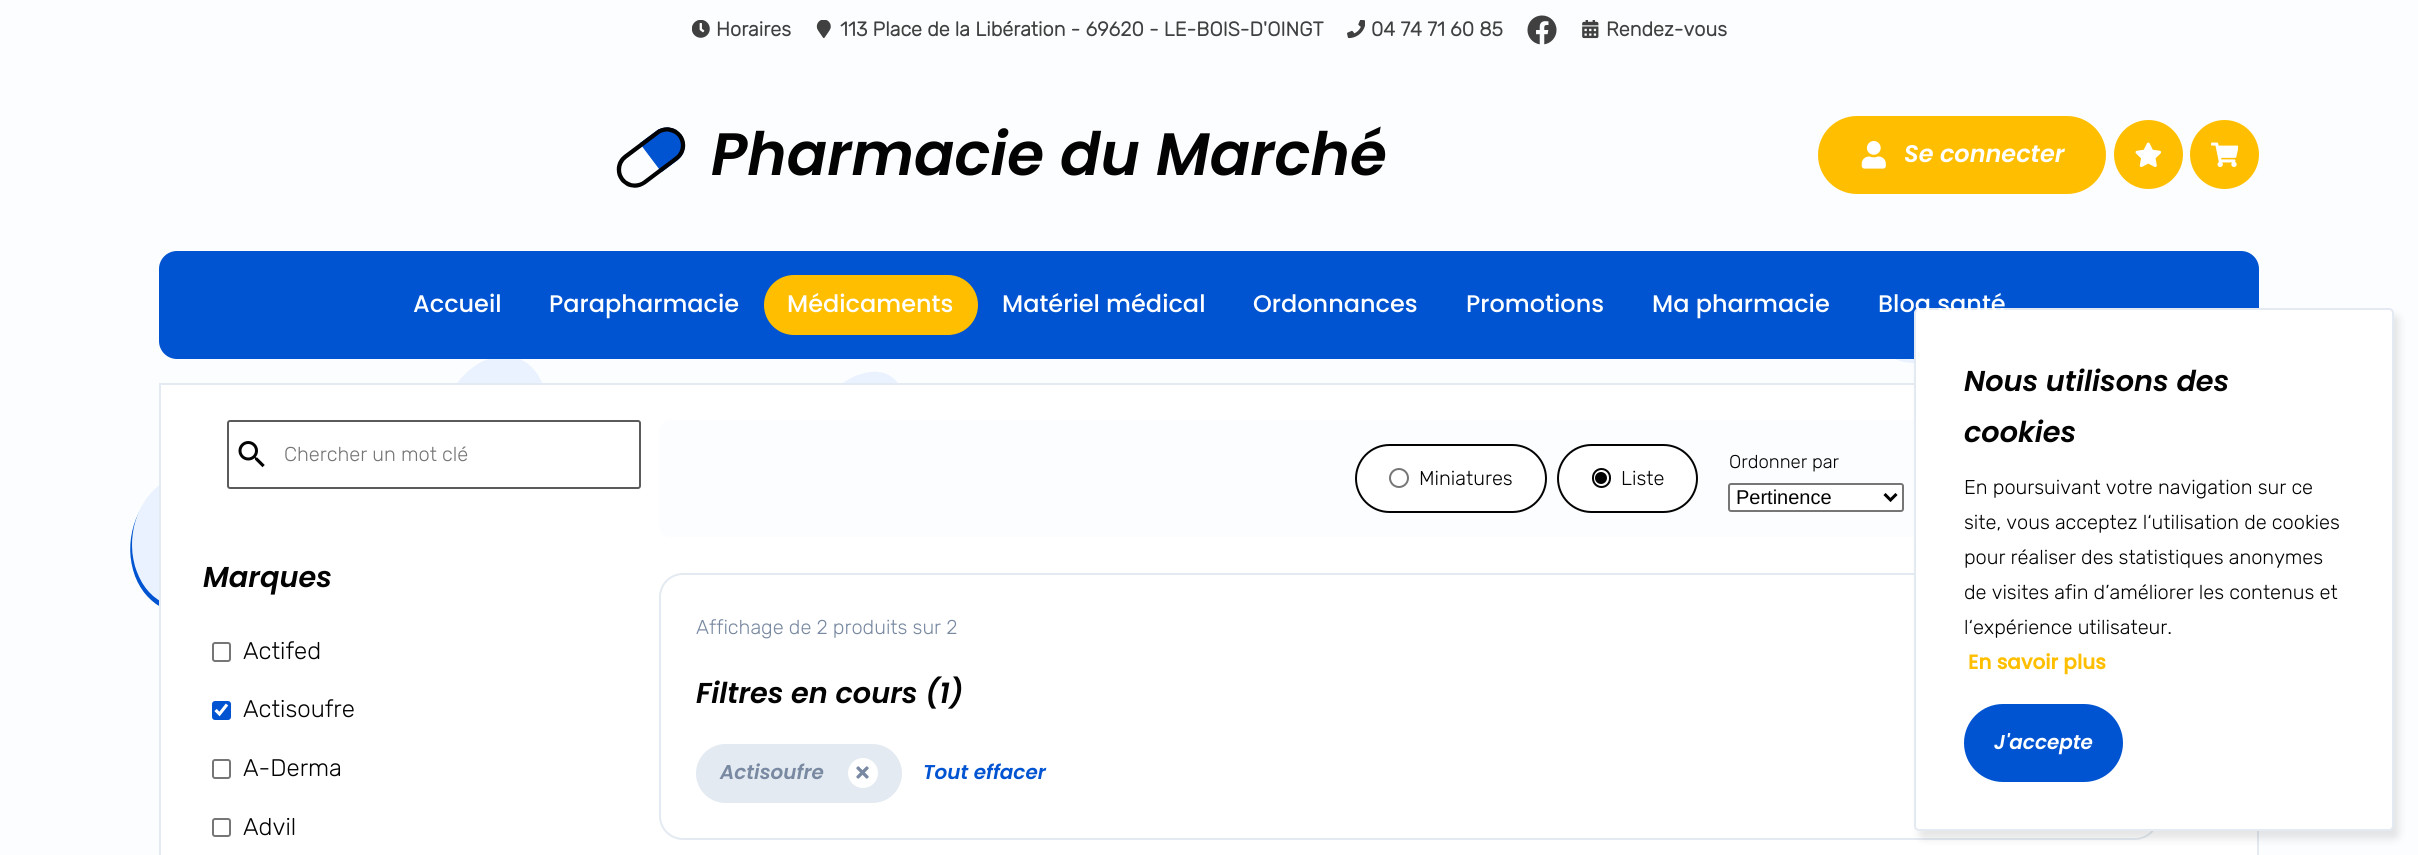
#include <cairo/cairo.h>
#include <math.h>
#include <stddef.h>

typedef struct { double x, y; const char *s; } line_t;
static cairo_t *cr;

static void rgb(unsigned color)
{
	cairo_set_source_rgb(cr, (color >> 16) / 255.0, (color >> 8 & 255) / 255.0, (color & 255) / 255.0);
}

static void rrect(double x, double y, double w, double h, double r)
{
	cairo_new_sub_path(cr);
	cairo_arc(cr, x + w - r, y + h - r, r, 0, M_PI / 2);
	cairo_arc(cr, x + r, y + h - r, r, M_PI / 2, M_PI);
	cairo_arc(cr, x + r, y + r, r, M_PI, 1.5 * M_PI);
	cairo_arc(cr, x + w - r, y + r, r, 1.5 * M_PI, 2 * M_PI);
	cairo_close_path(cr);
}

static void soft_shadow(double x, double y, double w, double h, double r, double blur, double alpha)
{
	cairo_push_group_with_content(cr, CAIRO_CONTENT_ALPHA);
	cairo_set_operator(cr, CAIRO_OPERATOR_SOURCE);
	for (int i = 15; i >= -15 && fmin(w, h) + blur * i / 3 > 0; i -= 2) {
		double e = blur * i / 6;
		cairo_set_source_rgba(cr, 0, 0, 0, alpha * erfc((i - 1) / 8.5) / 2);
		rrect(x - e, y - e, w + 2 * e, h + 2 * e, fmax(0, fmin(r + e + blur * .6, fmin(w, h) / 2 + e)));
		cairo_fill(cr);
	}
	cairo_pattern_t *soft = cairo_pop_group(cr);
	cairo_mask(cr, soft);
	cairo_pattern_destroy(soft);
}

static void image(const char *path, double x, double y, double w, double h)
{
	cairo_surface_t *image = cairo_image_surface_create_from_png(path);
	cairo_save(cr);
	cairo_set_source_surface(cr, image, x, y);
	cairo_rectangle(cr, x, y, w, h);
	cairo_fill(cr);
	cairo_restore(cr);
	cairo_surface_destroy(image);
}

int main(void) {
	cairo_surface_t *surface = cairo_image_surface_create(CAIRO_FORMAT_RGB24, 2418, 855);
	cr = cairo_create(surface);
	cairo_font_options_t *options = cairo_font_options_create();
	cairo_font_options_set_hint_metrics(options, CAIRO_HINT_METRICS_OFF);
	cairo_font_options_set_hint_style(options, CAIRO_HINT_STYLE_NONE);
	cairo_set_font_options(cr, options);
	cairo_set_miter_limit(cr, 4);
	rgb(0xfbfdfe);
	cairo_paint(cr);
	image("img/1.png", 130, 359, 1784, 247);
	image("img/2.png", 692, 20, 18, 18);
	image("img/3.png", 816, 20, 15, 19);
	image("img/4.png", 1347, 20, 18, 19);
	image("img/5.png", 1527, 15, 30, 30);
	image("img/6.png", 1582, 20, 17, 19);
	image("img/7.png", 616, 127, 70, 61);
	rgb(0xffbf00);
	rrect(1818, 116, 288, 78, 39);
	cairo_fill(cr);
	image("img/8.png", 1861, 141, 25, 28);
	cairo_arc(cr, 2148.5, 154.5, 34.5, 0, 2 * M_PI);
	cairo_fill(cr);
	image("img/9.png", 2135, 142, 27, 25);
	cairo_arc(cr, 2224.5, 154.5, 34.5, 0, 2 * M_PI);
	cairo_fill(cr);
	image("img/10.png", 2211, 142, 27, 25);
	rgb(0x0054d1);
	rrect(159, 251, 2100, 108, 18);
	cairo_fill(cr);
	rgb(0xffbf00);
	rrect(764, 275, 214, 60, 30);
	cairo_fill(cr);
	rgb(0xffffff);
	cairo_rectangle(cr, 160, 384, 2098, 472);
	cairo_fill_preserve(cr);
	rgb(0xe4eaf1);
	cairo_stroke(cr);
	rgb(0xfbfdfe);
	rrect(659, 420, 1599, 117, 12);
	cairo_fill(cr);
	rrect(228, 421, 412, 67, 2);
	rgb(0x5b5b5b);
	cairo_stroke(cr);
	image("img/11.png", 238, 441, 27, 27);
	rrect(213, 643, 17, 18, 2);
	rgb(0x767676);
	cairo_stroke(cr);
	rgb(0x0054d1);
	rrect(212, 701, 19, 19, 3);
	cairo_fill(cr);
	cairo_new_path(cr);
	cairo_move_to(cr, 215.5, 710);
	cairo_line_to(cr, 219.5, 714);
	cairo_line_to(cr, 227, 704.5);
	rgb(0xffffff);
	cairo_set_line_width(cr, 3.1);
	cairo_stroke(cr);
	rrect(213, 760, 17, 18, 2);
	rgb(0x767676);
	cairo_set_line_width(cr, 2);
	cairo_stroke(cr);
	rrect(213, 819, 17, 17, 2);
	cairo_stroke(cr);
	rgb(0xffffff);
	rrect(1356, 445, 190, 67, 33.5);
	cairo_fill_preserve(cr);
	rgb(0x030303);
	cairo_stroke(cr);
	cairo_arc(cr, 1399, 478, 9, 0, 2 * M_PI);
	rgb(0x767676);
	cairo_stroke(cr);
	rgb(0xffffff);
	rrect(1558, 445, 139, 67, 33.5);
	cairo_fill_preserve(cr);
	rgb(0x030303);
	cairo_stroke(cr);
	rrect(1593, 469, 17, 18, 8.5);
	cairo_stroke(cr);
	cairo_arc(cr, 1601, 478, 6, 0, 2 * M_PI);
	cairo_fill(cr);
	rgb(0xffffff);
	rrect(1729, 484, 174, 27, 2);
	cairo_fill_preserve(cr);
	rgb(0x767676);
	cairo_stroke(cr);
	cairo_new_path(cr);
	cairo_move_to(cr, 1884.5, 494);
	cairo_line_to(cr, 1890.5, 500);
	cairo_line_to(cr, 1896.5, 494);
	rgb(0x000000);
	cairo_set_line_width(cr, 3);
	cairo_stroke(cr);
	rrect(660, 574, 1498, 265, 23);
	rgb(0xe4eaf1);
	cairo_set_line_width(cr, 2);
	cairo_stroke(cr);
	rrect(696, 744, 206, 59, 29.5);
	cairo_fill(cr);
	rgb(0xffffff);
	cairo_arc(cr, 863, 773, 15, 0, 2 * M_PI);
	cairo_fill(cr);
	image("img/12.png", 856, 766, 13, 13);
	rgb(0x000000);
	soft_shadow(1919, 315, 480, 524, 5, 4, 0.1);
	rgb(0xffffff);
	rrect(1915, 309, 478, 521, 4);
	cairo_fill_preserve(cr);
	rgb(0xe4eaf1);
	cairo_stroke(cr);
	rgb(0x0054d1);
	rrect(1964, 704, 159, 78, 39);
	cairo_fill(cr);
	cairo_select_font_face(cr, "Rubik", CAIRO_FONT_SLANT_NORMAL, CAIRO_FONT_WEIGHT_BOLD);
	cairo_set_font_size(cr, 20);
	rgb(0x404040);
	{
		static const line_t items[] = {
			{716, 36, "Horaires"},
			{840, 36, "113 Place de la Libération - 69620 - LE-BOIS-D'OINGT"},
			{1371, 36, "04 74 71 60 85"},
			{1606, 36, "Rendez-vous"},
		};
		for (size_t i = 0; i < sizeof items / sizeof *items; i++) {
			cairo_move_to(cr, items[i].x, items[i].y);
			cairo_show_text(cr, items[i].s);
		}
	}
	cairo_select_font_face(cr, "Poppins SemiBold", CAIRO_FONT_SLANT_ITALIC, CAIRO_FONT_WEIGHT_NORMAL);
	cairo_set_font_size(cr, 59.75);
	rgb(0x030303);
	cairo_move_to(cr, 711, 175);
	cairo_show_text(cr, "Pharmacie du Marché");
	cairo_set_font_size(cr, 24);
	rgb(0xffffff);
	cairo_move_to(cr, 1904, 162);
	cairo_show_text(cr, "Se connecter");
	cairo_select_font_face(cr, "Poppins Medium", CAIRO_FONT_SLANT_NORMAL, CAIRO_FONT_WEIGHT_NORMAL);
	{
		static const line_t items[] = {
			{413, 312, "Accueil"},
			{549, 312, "Parapharmacie"},
			{787, 312, "Médicaments"},
			{1002, 312, "Matériel médical"},
			{1253, 312, "Ordonnances"},
			{1466, 312, "Promotions"},
			{1652, 312, "Ma pharmacie"},
			{1878, 312, "Blog santé"},
		};
		for (size_t i = 0; i < sizeof items / sizeof *items; i++) {
			cairo_move_to(cr, items[i].x, items[i].y);
			cairo_show_text(cr, items[i].s);
		}
	}
	cairo_select_font_face(cr, "Rubik Light", CAIRO_FONT_SLANT_NORMAL, CAIRO_FONT_WEIGHT_NORMAL);
	cairo_set_font_size(cr, 20);
	rgb(0x757575);
	cairo_move_to(cr, 284, 461);
	cairo_show_text(cr, "Chercher un mot clé");
	cairo_select_font_face(cr, "Poppins SemiBold", CAIRO_FONT_SLANT_ITALIC, CAIRO_FONT_WEIGHT_NORMAL);
	cairo_set_font_size(cr, 28.75);
	rgb(0x030303);
	cairo_move_to(cr, 203, 587);
	cairo_show_text(cr, "Marques");
	cairo_select_font_face(cr, "Rubik Light", CAIRO_FONT_SLANT_NORMAL, CAIRO_FONT_WEIGHT_NORMAL);
	cairo_set_font_size(cr, 24);
	{
		static const line_t items[] = {
			{243, 659, "Actifed"},
			{243, 717, "Actisoufre"},
			{243, 776, "A-Derma"},
			{243, 835, "Advil"},
		};
		for (size_t i = 0; i < sizeof items / sizeof *items; i++) {
			cairo_move_to(cr, items[i].x, items[i].y);
			cairo_show_text(cr, items[i].s);
		}
	}
	cairo_set_font_size(cr, 20);
	cairo_move_to(cr, 1419, 485);
	cairo_show_text(cr, "Miniatures");
	cairo_move_to(cr, 1621, 485);
	cairo_show_text(cr, "Liste");
	cairo_set_font_size(cr, 18.5);
	cairo_move_to(cr, 1729, 468);
	cairo_show_text(cr, "Ordonner par");
	cairo_select_font_face(cr, "Liberation Sans", CAIRO_FONT_SLANT_NORMAL, CAIRO_FONT_WEIGHT_NORMAL);
	cairo_set_font_size(cr, 20);
	cairo_move_to(cr, 1736, 504);
	cairo_show_text(cr, "Pertinence");
	cairo_select_font_face(cr, "Rubik Light", CAIRO_FONT_SLANT_NORMAL, CAIRO_FONT_WEIGHT_NORMAL);
	rgb(0x7889a1);
	cairo_move_to(cr, 696, 634);
	cairo_show_text(cr, "Affichage de 2 produits sur 2");
	cairo_select_font_face(cr, "Poppins SemiBold", CAIRO_FONT_SLANT_ITALIC, CAIRO_FONT_WEIGHT_NORMAL);
	cairo_set_font_size(cr, 28.75);
	rgb(0x030303);
	cairo_move_to(cr, 696, 703);
	cairo_show_text(cr, "Filtres en cours (1)");
	cairo_set_font_size(cr, 20);
	rgb(0x7889a1);
	cairo_move_to(cr, 720, 779);
	cairo_show_text(cr, "Actisoufre");
	rgb(0x0054d1);
	cairo_move_to(cr, 923, 779);
	cairo_show_text(cr, "Tout effacer");
	cairo_set_font_size(cr, 28.75);
	rgb(0x030303);
	cairo_move_to(cr, 1964, 391);
	cairo_show_text(cr, "Nous utilisons des");
	cairo_move_to(cr, 1964, 442);
	cairo_show_text(cr, "cookies");
	cairo_select_font_face(cr, "Rubik Light", CAIRO_FONT_SLANT_NORMAL, CAIRO_FONT_WEIGHT_NORMAL);
	cairo_set_font_size(cr, 20);
	{
		static const line_t items[] = {
			{1964, 494, "En poursuivant votre navigation sur ce"},
			{1964, 529, "site, vous acceptez l‘utilisation de cookies"},
			{1964, 564, "pour réaliser des statistiques anonymes"},
			{1964, 599, "de visites afin d’améliorer les contenus et"},
			{1964, 634, "l‘expérience utilisateur."},
		};
		for (size_t i = 0; i < sizeof items / sizeof *items; i++) {
			cairo_move_to(cr, items[i].x, items[i].y);
			cairo_show_text(cr, items[i].s);
		}
	}
	cairo_select_font_face(cr, "Poppins", CAIRO_FONT_SLANT_NORMAL, CAIRO_FONT_WEIGHT_BOLD);
	rgb(0xffbf00);
	cairo_move_to(cr, 1968, 669);
	cairo_show_text(cr, "En savoir plus");
	cairo_select_font_face(cr, "Poppins SemiBold", CAIRO_FONT_SLANT_ITALIC, CAIRO_FONT_WEIGHT_NORMAL);
	rgb(0xffffff);
	cairo_move_to(cr, 1994, 749);
	cairo_show_text(cr, "J'accepte");
	cairo_surface_write_to_png(surface, "page.png");
	cairo_font_options_destroy(options);
	cairo_destroy(cr);
	cairo_surface_destroy(surface);
	return 0;
}
